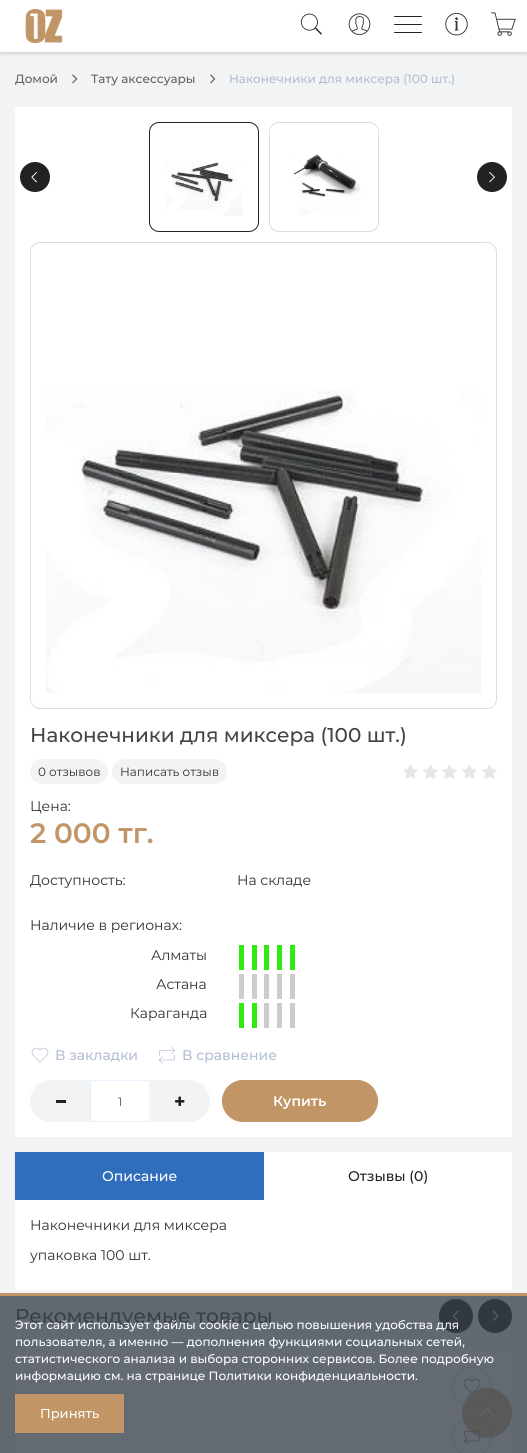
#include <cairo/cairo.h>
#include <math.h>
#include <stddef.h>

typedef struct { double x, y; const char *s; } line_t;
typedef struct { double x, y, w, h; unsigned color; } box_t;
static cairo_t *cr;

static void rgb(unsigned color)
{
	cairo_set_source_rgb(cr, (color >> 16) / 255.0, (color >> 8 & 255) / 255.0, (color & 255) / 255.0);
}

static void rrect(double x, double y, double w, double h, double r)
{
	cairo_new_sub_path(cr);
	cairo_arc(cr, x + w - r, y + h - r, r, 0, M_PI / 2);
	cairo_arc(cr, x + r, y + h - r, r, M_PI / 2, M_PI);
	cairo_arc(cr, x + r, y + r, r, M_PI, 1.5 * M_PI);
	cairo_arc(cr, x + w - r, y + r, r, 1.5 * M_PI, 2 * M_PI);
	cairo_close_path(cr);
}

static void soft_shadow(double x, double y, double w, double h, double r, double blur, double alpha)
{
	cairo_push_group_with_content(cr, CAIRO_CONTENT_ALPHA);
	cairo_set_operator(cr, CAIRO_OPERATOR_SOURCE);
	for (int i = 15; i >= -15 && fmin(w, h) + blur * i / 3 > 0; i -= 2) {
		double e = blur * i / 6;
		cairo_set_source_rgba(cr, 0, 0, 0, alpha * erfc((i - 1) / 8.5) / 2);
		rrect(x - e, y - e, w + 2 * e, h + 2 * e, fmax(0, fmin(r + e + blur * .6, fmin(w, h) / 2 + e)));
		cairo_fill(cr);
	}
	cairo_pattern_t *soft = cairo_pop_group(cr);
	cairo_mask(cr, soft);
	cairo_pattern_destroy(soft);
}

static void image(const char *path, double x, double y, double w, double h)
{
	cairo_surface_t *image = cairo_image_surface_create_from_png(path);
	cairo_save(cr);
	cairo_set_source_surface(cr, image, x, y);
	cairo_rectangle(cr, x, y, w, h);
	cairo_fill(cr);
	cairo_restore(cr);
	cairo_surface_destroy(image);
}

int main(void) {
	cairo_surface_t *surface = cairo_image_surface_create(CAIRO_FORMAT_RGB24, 527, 1453);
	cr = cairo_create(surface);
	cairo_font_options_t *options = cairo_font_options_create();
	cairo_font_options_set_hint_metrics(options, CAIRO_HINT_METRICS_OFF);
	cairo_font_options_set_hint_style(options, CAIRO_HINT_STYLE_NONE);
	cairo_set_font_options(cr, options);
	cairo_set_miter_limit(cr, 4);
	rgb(0xf2f3f5);
	cairo_paint(cr);
	rgb(0x606870);
	cairo_rectangle(cr, 0, 1296, 527, 157);
	cairo_fill(cr);
	rgb(0x000000);
	soft_shadow(0, 1, 527, 52, 0, 2, 0.2);
	rgb(0xffffff);
	cairo_rectangle(cr, 0, 0, 527, 51);
	cairo_fill(cr);
	rgb(0xfbfbfb);
	cairo_rectangle(cr, 0, 51, 527, 1);
	cairo_fill(cr);
	image("img/1.png", 25, 9, 38, 34);
	image("img/2.png", 300, 13, 22, 22);
	image("img/3.png", 348, 13, 23, 22);
	rgb(0x222222);
	rrect(394, 16, 28, 1, 0.5);
	cairo_fill(cr);
	rrect(394, 24, 28, 1, 0.5);
	cairo_fill(cr);
	rrect(394, 32, 28, 1, 0.5);
	cairo_fill(cr);
	image("img/4.png", 445, 13, 23, 23);
	image("img/5.png", 491, 12, 25, 24);
	image("img/6.png", 72, 74, 6, 10);
	image("img/6.png", 210, 74, 6, 10);
	rgb(0xffffff);
	cairo_rectangle(cr, 15, 107, 497, 1030);
	cairo_fill(cr);
	rgb(0x222223);
	cairo_new_path(cr);
	cairo_move_to(cr, 20, 177);
	cairo_curve_to(cr, 20, 169, 26.5, 162, 35, 162);
	cairo_curve_to(cr, 43.5, 162, 50, 169, 50, 177);
	cairo_curve_to(cr, 50, 185.5, 43.5, 192, 35, 192);
	cairo_curve_to(cr, 26.5, 192, 20, 185.5, 20, 177);
	cairo_close_path(cr);
	cairo_fill(cr);
	image("img/7.png", 31, 172, 6, 11);
	rrect(149.5, 122.5, 109, 109, 9.5);
	cairo_set_line_width(cr, 1);
	cairo_stroke(cr);
	image("img/8.png", 165, 162, 78, 54);
	rrect(269.5, 122.5, 109, 109, 9.5);
	rgb(0xdddddd);
	cairo_stroke(cr);
	image("img/9.png", 293, 154, 68, 62);
	rgb(0x222223);
	cairo_new_path(cr);
	cairo_move_to(cr, 477, 177);
	cairo_curve_to(cr, 477, 169, 483.5, 162, 492, 162);
	cairo_curve_to(cr, 500.5, 162, 507, 169, 507, 177);
	cairo_curve_to(cr, 507, 185.5, 500.5, 192, 492, 192);
	cairo_curve_to(cr, 483.5, 192, 477, 185.5, 477, 177);
	cairo_close_path(cr);
	cairo_fill(cr);
	image("img/10.png", 489, 172, 6, 11);
	rrect(30.5, 242.5, 466, 466, 9.5);
	rgb(0xdddddd);
	cairo_stroke(cr);
	image("img/11.png", 46, 389, 435, 304);
	rgb(0xf2f3f5);
	rrect(30, 759, 78, 25, 12.5);
	cairo_fill(cr);
	rrect(112, 759, 115, 25, 12.5);
	cairo_fill(cr);
	image("img/12.png", 403, 764, 15, 15);
	image("img/12.png", 423, 764, 15, 15);
	image("img/12.png", 442, 764, 15, 15);
	image("img/12.png", 462, 764, 15, 15);
	image("img/12.png", 482, 764, 15, 15);
	{
		static const box_t items[] = {
			{239, 945, 5, 25, 0x31ea0f},
			{252, 945, 5, 25, 0x31ea0f},
			{264, 945, 5, 25, 0x31ea0f},
			{277, 945, 5, 25, 0x31ea0f},
			{290, 945, 5, 25, 0x31ea0f},
			{239, 974, 5, 25, 0xcccccc},
			{252, 974, 5, 25, 0xcccccc},
			{264, 974, 5, 25, 0xcccccc},
			{277, 974, 5, 25, 0xcccccc},
			{290, 974, 5, 25, 0xcccccc},
			{239, 1003, 5, 25, 0x31ea0f},
			{252, 1003, 5, 25, 0x31ea0f},
			{264, 1003, 5, 25, 0xcccccc},
			{277, 1003, 5, 25, 0xcccccc},
			{290, 1003, 5, 25, 0xcccccc},
		};
		for (size_t i = 0; i < sizeof items / sizeof *items; i++) {
			rgb(items[i].color);
			cairo_rectangle(cr, items[i].x, items[i].y, items[i].w, items[i].h);
			cairo_fill(cr);
		}
	}
	image("img/13.png", 31, 1047, 18, 16);
	image("img/14.png", 158, 1047, 18, 17);
	rgb(0xf2f3f5);
	cairo_new_path(cr);
	cairo_move_to(cr, 51, 1080);
	cairo_line_to(cr, 91, 1080);
	cairo_line_to(cr, 91, 1122);
	cairo_line_to(cr, 51, 1122);
	cairo_curve_to(cr, 39.5, 1122, 30, 1112.5, 30, 1101);
	cairo_curve_to(cr, 30, 1089.5, 39.5, 1080, 51, 1080);
	cairo_close_path(cr);
	cairo_fill(cr);
	rgb(0x222222);
	cairo_rectangle(cr, 56, 1100, 10, 3);
	cairo_fill(cr);
	cairo_rectangle(cr, 90.5, 1080.5, 59, 41);
	rgb(0xe6f2fd);
	cairo_stroke(cr);
	rgb(0xf2f3f5);
	cairo_new_path(cr);
	cairo_move_to(cr, 149, 1080);
	cairo_line_to(cr, 189, 1080);
	cairo_curve_to(cr, 200.5, 1080, 210, 1089.5, 210, 1101);
	cairo_curve_to(cr, 210, 1112.5, 200.5, 1122, 189, 1122);
	cairo_line_to(cr, 149, 1122);
	cairo_close_path(cr);
	cairo_fill(cr);
	image("img/15.png", 175, 1096, 10, 10);
	rgb(0xc19566);
	rrect(222.5, 1080.5, 155, 41, 20.5);
	cairo_fill_preserve(cr);
	cairo_stroke(cr);
	{
		static const box_t items[] = {
			{15, 1152, 249, 48, 0x306ebd},
			{264, 1152, 248, 48, 0xffffff},
			{15, 1200, 497, 90, 0xffffff},
		};
		for (size_t i = 0; i < sizeof items / sizeof *items; i++) {
			rgb(items[i].color);
			cairo_rectangle(cr, items[i].x, items[i].y, items[i].w, items[i].h);
			cairo_fill(cr);
		}
	}
	rgb(0x31383f);
	cairo_arc(cr, 456, 1316, 17, 0, 2 * M_PI);
	cairo_fill(cr);
	image("img/16.png", 452, 1310, 7, 11);
	cairo_arc(cr, 495, 1316, 17, 0, 2 * M_PI);
	cairo_fill(cr);
	image("img/17.png", 492, 1310, 7, 11);
	rgb(0x636a72);
	cairo_rectangle(cr, 15, 1347, 497, 106);
	cairo_fill(cr);
	cairo_arc(cr, 472, 1387, 19.5, 0, 2 * M_PI);
	rgb(0x5c636a);
	cairo_stroke(cr);
	image("img/18.png", 463, 1378, 18, 16);
	cairo_arc(cr, 472, 1437, 19.5, 0, 2 * M_PI);
	cairo_stroke(cr);
	image("img/19.png", 463, 1428, 18, 17);
	cairo_set_source_rgba(cr, 0.333, 0.322, 0.31, 0.7);
	cairo_arc(cr, 487, 1413, 25, 0, 2 * M_PI);
	cairo_fill(cr);
	image("img/20.png", 479, 1407, 16, 9);
	cairo_rectangle(cr, -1.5, 1294.5, 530, 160);
	rgb(0xc19566);
	cairo_set_line_width(cr, 3);
	cairo_stroke(cr);
	cairo_rectangle(cr, 15, 1394, 109, 39);
	cairo_fill(cr);
	cairo_select_font_face(cr, "Montserrat Medium", CAIRO_FONT_SLANT_NORMAL, CAIRO_FONT_WEIGHT_NORMAL);
	cairo_set_font_size(cr, 12);
	rgb(0x616161);
	cairo_move_to(cr, 15, 83);
	cairo_show_text(cr, "Домой");
	cairo_move_to(cr, 91, 83);
	cairo_show_text(cr, "Тату аксессуары");
	rgb(0xb2bdd2);
	cairo_move_to(cr, 229, 83);
	cairo_show_text(cr, "Наконечники для миксера (100 шт.)");
	cairo_set_font_size(cr, 20);
	rgb(0x444444);
	cairo_move_to(cr, 30, 742);
	cairo_show_text(cr, "Наконечники для миксера (100 шт.)");
	cairo_select_font_face(cr, "Montserrat", CAIRO_FONT_SLANT_NORMAL, CAIRO_FONT_WEIGHT_NORMAL);
	cairo_set_font_size(cr, 12);
	rgb(0x313131);
	cairo_move_to(cr, 38, 776);
	cairo_show_text(cr, "0 отзывов");
	cairo_move_to(cr, 120, 776);
	cairo_show_text(cr, "Написать отзыв");
	cairo_set_font_size(cr, 14);
	cairo_move_to(cr, 30, 811);
	cairo_show_text(cr, "Цена:");
	cairo_select_font_face(cr, "Montserrat SemiBold", CAIRO_FONT_SLANT_NORMAL, CAIRO_FONT_WEIGHT_NORMAL);
	cairo_set_font_size(cr, 28);
	rgb(0xc19566);
	cairo_move_to(cr, 30, 843);
	cairo_show_text(cr, "2 000 тг.");
	cairo_select_font_face(cr, "Montserrat", CAIRO_FONT_SLANT_NORMAL, CAIRO_FONT_WEIGHT_NORMAL);
	cairo_set_font_size(cr, 14);
	rgb(0x313131);
	{
		static const line_t items[] = {
			{30, 885, "Доступность:"},
			{237, 885, "На складе"},
			{30, 930, "Наличие в регионах:"},
			{151, 960, "Алматы"},
			{156, 989, "Астана"},
			{130, 1018, "Караганда"},
		};
		for (size_t i = 0; i < sizeof items / sizeof *items; i++) {
			cairo_move_to(cr, items[i].x, items[i].y);
			cairo_show_text(cr, items[i].s);
		}
	}
	cairo_select_font_face(cr, "Montserrat Medium", CAIRO_FONT_SLANT_NORMAL, CAIRO_FONT_WEIGHT_NORMAL);
	rgb(0xb2bdd2);
	cairo_move_to(cr, 55, 1060);
	cairo_show_text(cr, "В закладки");
	cairo_move_to(cr, 182, 1060);
	cairo_show_text(cr, "В сравнение");
	cairo_select_font_face(cr, "Montserrat", CAIRO_FONT_SLANT_NORMAL, CAIRO_FONT_WEIGHT_NORMAL);
	cairo_set_font_size(cr, 12);
	rgb(0x555555);
	cairo_move_to(cr, 118, 1106);
	cairo_show_text(cr, "1");
	cairo_select_font_face(cr, "Montserrat SemiBold", CAIRO_FONT_SLANT_NORMAL, CAIRO_FONT_WEIGHT_NORMAL);
	cairo_set_font_size(cr, 14);
	rgb(0xffffff);
	cairo_move_to(cr, 273, 1106);
	cairo_show_text(cr, "Купить");
	cairo_select_font_face(cr, "Montserrat Medium", CAIRO_FONT_SLANT_NORMAL, CAIRO_FONT_WEIGHT_NORMAL);
	cairo_move_to(cr, 102, 1181);
	cairo_show_text(cr, "Описание");
	rgb(0x222222);
	cairo_move_to(cr, 348, 1181);
	cairo_show_text(cr, "Отзывы (0)");
	cairo_select_font_face(cr, "Montserrat", CAIRO_FONT_SLANT_NORMAL, CAIRO_FONT_WEIGHT_NORMAL);
	rgb(0x313131);
	cairo_move_to(cr, 30, 1230);
	cairo_show_text(cr, "Наконечники для миксера");
	cairo_move_to(cr, 30, 1260);
	cairo_show_text(cr, "упаковка 100 шт.");
	cairo_select_font_face(cr, "Montserrat Medium", CAIRO_FONT_SLANT_NORMAL, CAIRO_FONT_WEIGHT_NORMAL);
	cairo_set_font_size(cr, 20);
	rgb(0x383f47);
	cairo_move_to(cr, 15, 1323);
	cairo_show_text(cr, "Рекомендуемые товары");
	cairo_set_font_size(cr, 12);
	rgb(0xffffff);
	{
		static const line_t items[] = {
			{15, 1329, "Этот сайт использует файлы cookie с целью повышения удобства для"},
			{15, 1346, "пользователя, а именно — дополнения функциями социальных сетей,"},
			{15, 1363, "статистического анализа и выбора сторонних сервисов. Более подробную"},
			{15, 1380, "информацию см. на странице Политики конфиденциальности."},
		};
		for (size_t i = 0; i < sizeof items / sizeof *items; i++) {
			cairo_move_to(cr, items[i].x, items[i].y);
			cairo_show_text(cr, items[i].s);
		}
	}
	cairo_set_font_size(cr, 13);
	cairo_move_to(cr, 40, 1418);
	cairo_show_text(cr, "Принять");
	cairo_surface_write_to_png(surface, "page.png");
	cairo_font_options_destroy(options);
	cairo_destroy(cr);
	cairo_surface_destroy(surface);
	return 0;
}
